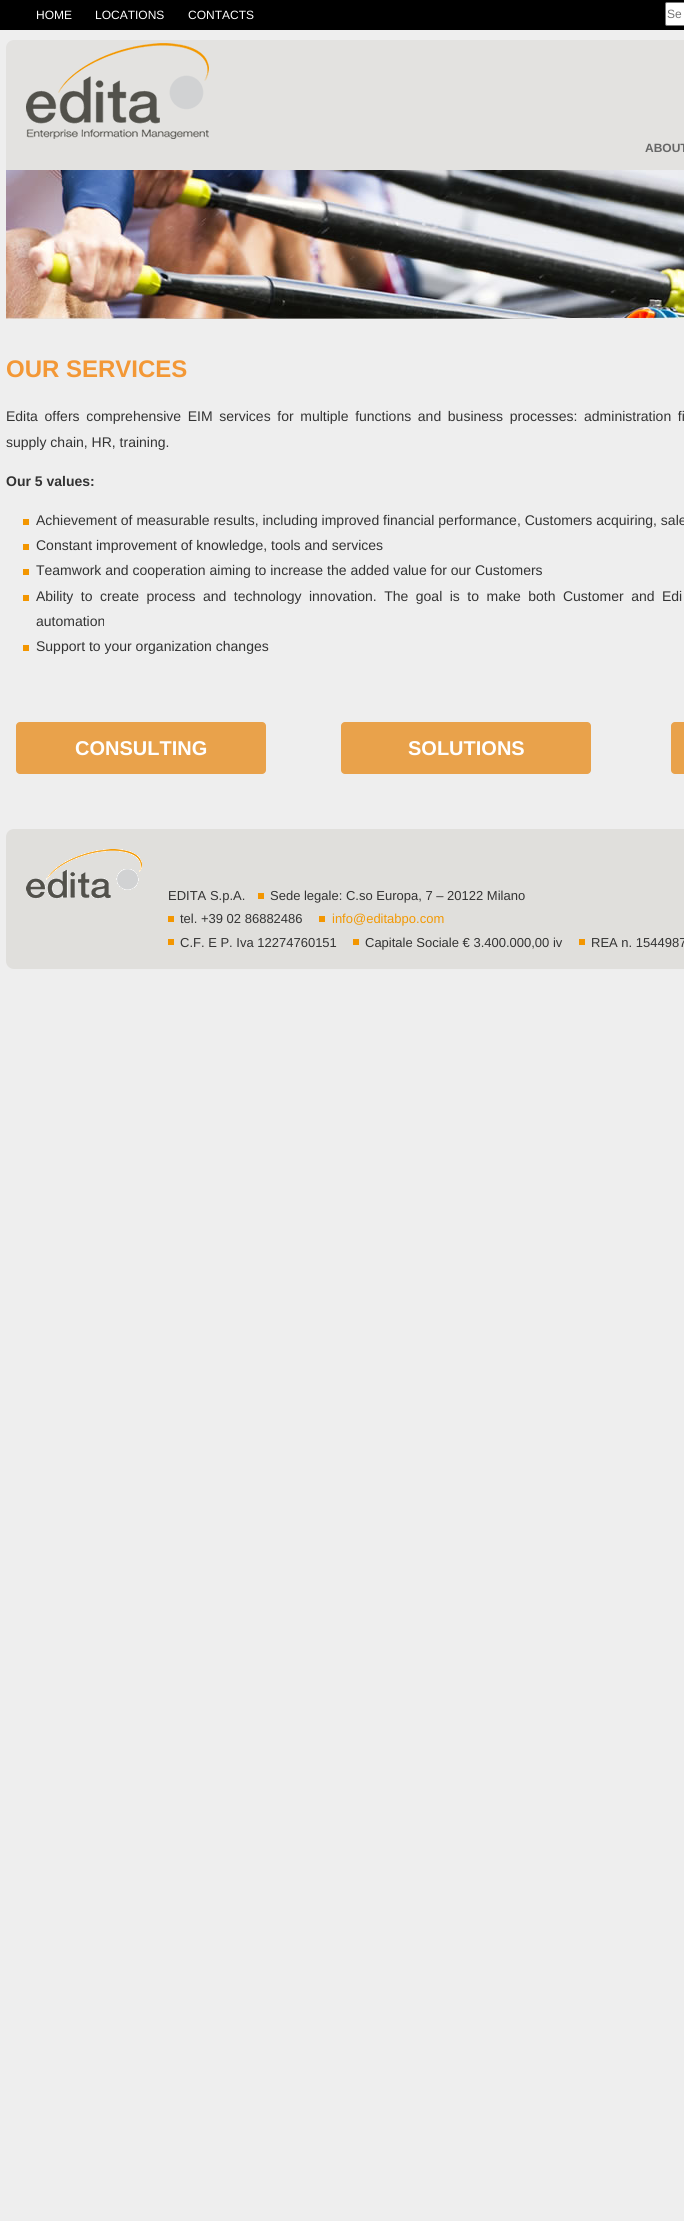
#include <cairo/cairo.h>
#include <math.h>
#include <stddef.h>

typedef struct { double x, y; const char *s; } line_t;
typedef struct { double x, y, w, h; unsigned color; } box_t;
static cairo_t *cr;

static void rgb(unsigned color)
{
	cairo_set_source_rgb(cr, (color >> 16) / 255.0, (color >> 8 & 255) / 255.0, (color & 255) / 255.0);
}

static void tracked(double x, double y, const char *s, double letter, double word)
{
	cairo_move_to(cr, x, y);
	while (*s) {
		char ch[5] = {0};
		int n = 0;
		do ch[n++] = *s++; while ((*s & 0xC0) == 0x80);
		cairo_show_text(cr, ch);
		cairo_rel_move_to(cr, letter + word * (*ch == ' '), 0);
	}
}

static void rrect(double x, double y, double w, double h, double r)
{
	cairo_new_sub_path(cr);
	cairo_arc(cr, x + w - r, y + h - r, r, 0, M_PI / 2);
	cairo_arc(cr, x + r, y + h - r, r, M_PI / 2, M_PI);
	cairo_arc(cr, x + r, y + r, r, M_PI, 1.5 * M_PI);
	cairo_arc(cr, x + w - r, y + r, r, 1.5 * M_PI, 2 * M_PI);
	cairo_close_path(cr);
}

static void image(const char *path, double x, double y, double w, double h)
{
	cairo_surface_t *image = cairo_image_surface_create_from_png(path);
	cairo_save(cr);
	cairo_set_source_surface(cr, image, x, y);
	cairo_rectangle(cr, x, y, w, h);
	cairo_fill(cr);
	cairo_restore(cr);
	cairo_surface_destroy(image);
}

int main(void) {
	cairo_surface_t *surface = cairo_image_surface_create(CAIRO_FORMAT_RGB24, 684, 2221);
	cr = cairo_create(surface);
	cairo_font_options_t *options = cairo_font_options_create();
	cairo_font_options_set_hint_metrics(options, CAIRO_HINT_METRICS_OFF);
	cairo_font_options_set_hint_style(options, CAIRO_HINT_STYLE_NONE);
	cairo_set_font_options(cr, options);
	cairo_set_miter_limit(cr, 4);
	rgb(0xeeeeee);
	cairo_paint(cr);
	rgb(0x000000);
	cairo_rectangle(cr, 0, 0, 684, 30);
	cairo_fill(cr);
	rgb(0xffffff);
	rrect(665.5, 2.5, 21, 23, 1.5);
	cairo_fill_preserve(cr);
	rgb(0x767676);
	cairo_set_line_width(cr, 1);
	cairo_stroke(cr);
	rgb(0xe3e2e0);
	cairo_new_path(cr);
	cairo_move_to(cr, 14, 40);
	cairo_line_to(cr, 684, 40);
	cairo_curve_to(cr, 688.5, 40, 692, 43.5, 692, 48);
	cairo_line_to(cr, 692, 170);
	cairo_line_to(cr, 6, 170);
	cairo_line_to(cr, 6, 48);
	cairo_curve_to(cr, 6, 43.5, 9.5, 40, 14, 40);
	cairo_close_path(cr);
	cairo_fill(cr);
	image("img/1.png", 26, 43, 183, 96);
	image("img/2.png", 6, 170, 678, 149);
	{
		static const box_t items[] = {
			{23, 519, 6, 6, 0xf39600},
			{23, 544, 6, 6, 0xf39600},
			{23, 569, 6, 6, 0xf39600},
			{23, 595, 6, 6, 0xf39600},
			{23, 645, 6, 6, 0xf39600},
		};
		for (size_t i = 0; i < sizeof items / sizeof *items; i++) {
			rgb(items[i].color);
			cairo_rectangle(cr, items[i].x, items[i].y, items[i].w, items[i].h);
			cairo_fill(cr);
		}
	}
	rgb(0xe9a24b);
	rrect(16, 722, 250, 52, 4);
	cairo_fill(cr);
	rrect(341, 722, 250, 52, 4);
	cairo_fill(cr);
	rrect(671, 722, 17, 52, 4);
	cairo_fill(cr);
	rgb(0xe0dfdc);
	rrect(6, 829, 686, 140, 8);
	cairo_fill(cr);
	image("img/3.png", 26, 849, 116, 50);
	{
		static const box_t items[] = {
			{258, 893, 6, 6, 0xf39600},
			{168, 916, 6, 6, 0xf39600},
			{319, 916, 6, 6, 0xf39600},
			{168, 939, 6, 6, 0xf39600},
			{353, 939, 6, 6, 0xf39600},
			{579, 939, 6, 6, 0xf39600},
		};
		for (size_t i = 0; i < sizeof items / sizeof *items; i++) {
			rgb(items[i].color);
			cairo_rectangle(cr, items[i].x, items[i].y, items[i].w, items[i].h);
			cairo_fill(cr);
		}
	}
	cairo_select_font_face(cr, "Liberation Sans", CAIRO_FONT_SLANT_NORMAL, CAIRO_FONT_WEIGHT_NORMAL);
	cairo_set_font_size(cr, 12);
	rgb(0xffffff);
	{
		static const line_t items[] = {
			{36, 19, "HOME"},
			{95, 19, "LOCATIONS"},
			{188, 19, "CONTACTS"},
		};
		for (size_t i = 0; i < sizeof items / sizeof *items; i++) {
			cairo_move_to(cr, items[i].x, items[i].y);
			cairo_show_text(cr, items[i].s);
		}
	}
	rgb(0x757575);
	cairo_move_to(cr, 667, 18);
	cairo_show_text(cr, "Se");
	cairo_select_font_face(cr, "Liberation Sans", CAIRO_FONT_SLANT_NORMAL, CAIRO_FONT_WEIGHT_BOLD);
	rgb(0x666666);
	cairo_move_to(cr, 645, 152);
	cairo_show_text(cr, "ABOUT");
	cairo_set_font_size(cr, 24);
	rgb(0xf39836);
	cairo_move_to(cr, 6, 377);
	cairo_show_text(cr, "OUR SERVICES");
	cairo_select_font_face(cr, "Liberation Sans", CAIRO_FONT_SLANT_NORMAL, CAIRO_FONT_WEIGHT_NORMAL);
	cairo_set_font_size(cr, 14);
	rgb(0x333333);
	tracked(6, 421, "Edita offers comprehensive EIM services for multiple functions and business processes: administration fi", 0, 2.75);
	cairo_move_to(cr, 6, 447);
	cairo_show_text(cr, "supply chain, HR, training.");
	cairo_select_font_face(cr, "Liberation Sans", CAIRO_FONT_SLANT_NORMAL, CAIRO_FONT_WEIGHT_BOLD);
	cairo_move_to(cr, 6, 486);
	cairo_show_text(cr, "Our 5 values:");
	cairo_select_font_face(cr, "Liberation Sans", CAIRO_FONT_SLANT_NORMAL, CAIRO_FONT_WEIGHT_NORMAL);
	{
		static const line_t items[] = {
			{36, 525, "Achievement of measurable results, including improved financial performance, Customers acquiring, sale"},
			{36, 550, "Constant improvement of knowledge, tools and services"},
			{36, 575, "Teamwork and cooperation aiming to increase the added value for our Customers"},
		};
		for (size_t i = 0; i < sizeof items / sizeof *items; i++) {
			cairo_move_to(cr, items[i].x, items[i].y);
			cairo_show_text(cr, items[i].s);
		}
	}
	tracked(36, 601, "Ability to create process and technology innovation. The goal is to make both Customer and Edi", 0, 3.6);
	cairo_move_to(cr, 36, 626);
	cairo_show_text(cr, "automation");
	cairo_move_to(cr, 36, 651);
	cairo_show_text(cr, "Support to your organization changes");
	cairo_select_font_face(cr, "Liberation Sans", CAIRO_FONT_SLANT_NORMAL, CAIRO_FONT_WEIGHT_BOLD);
	cairo_set_font_size(cr, 20);
	rgb(0xffffff);
	cairo_move_to(cr, 75, 755);
	cairo_show_text(cr, "CONSULTING");
	cairo_move_to(cr, 408, 755);
	cairo_show_text(cr, "SOLUTIONS");
	cairo_select_font_face(cr, "Liberation Sans", CAIRO_FONT_SLANT_NORMAL, CAIRO_FONT_WEIGHT_NORMAL);
	cairo_set_font_size(cr, 13);
	rgb(0x333333);
	{
		static const line_t items[] = {
			{168, 900, "EDITA S.p.A."},
			{270, 900, "Sede legale: C.so Europa, 7 – 20122 Milano"},
			{180, 923, "tel. +39 02 86882486"},
		};
		for (size_t i = 0; i < sizeof items / sizeof *items; i++) {
			cairo_move_to(cr, items[i].x, items[i].y);
			cairo_show_text(cr, items[i].s);
		}
	}
	rgb(0xf29904);
	cairo_move_to(cr, 332, 923);
	cairo_show_text(cr, "info@editabpo.com");
	rgb(0x333333);
	{
		static const line_t items[] = {
			{180, 947, "C.F. E P. Iva 12274760151"},
			{365, 947, "Capitale Sociale € 3.400.000,00 iv"},
			{591, 947, "REA n. 1544987"},
		};
		for (size_t i = 0; i < sizeof items / sizeof *items; i++) {
			cairo_move_to(cr, items[i].x, items[i].y);
			cairo_show_text(cr, items[i].s);
		}
	}
	cairo_surface_write_to_png(surface, "page.png");
	cairo_font_options_destroy(options);
	cairo_destroy(cr);
	cairo_surface_destroy(surface);
	return 0;
}
